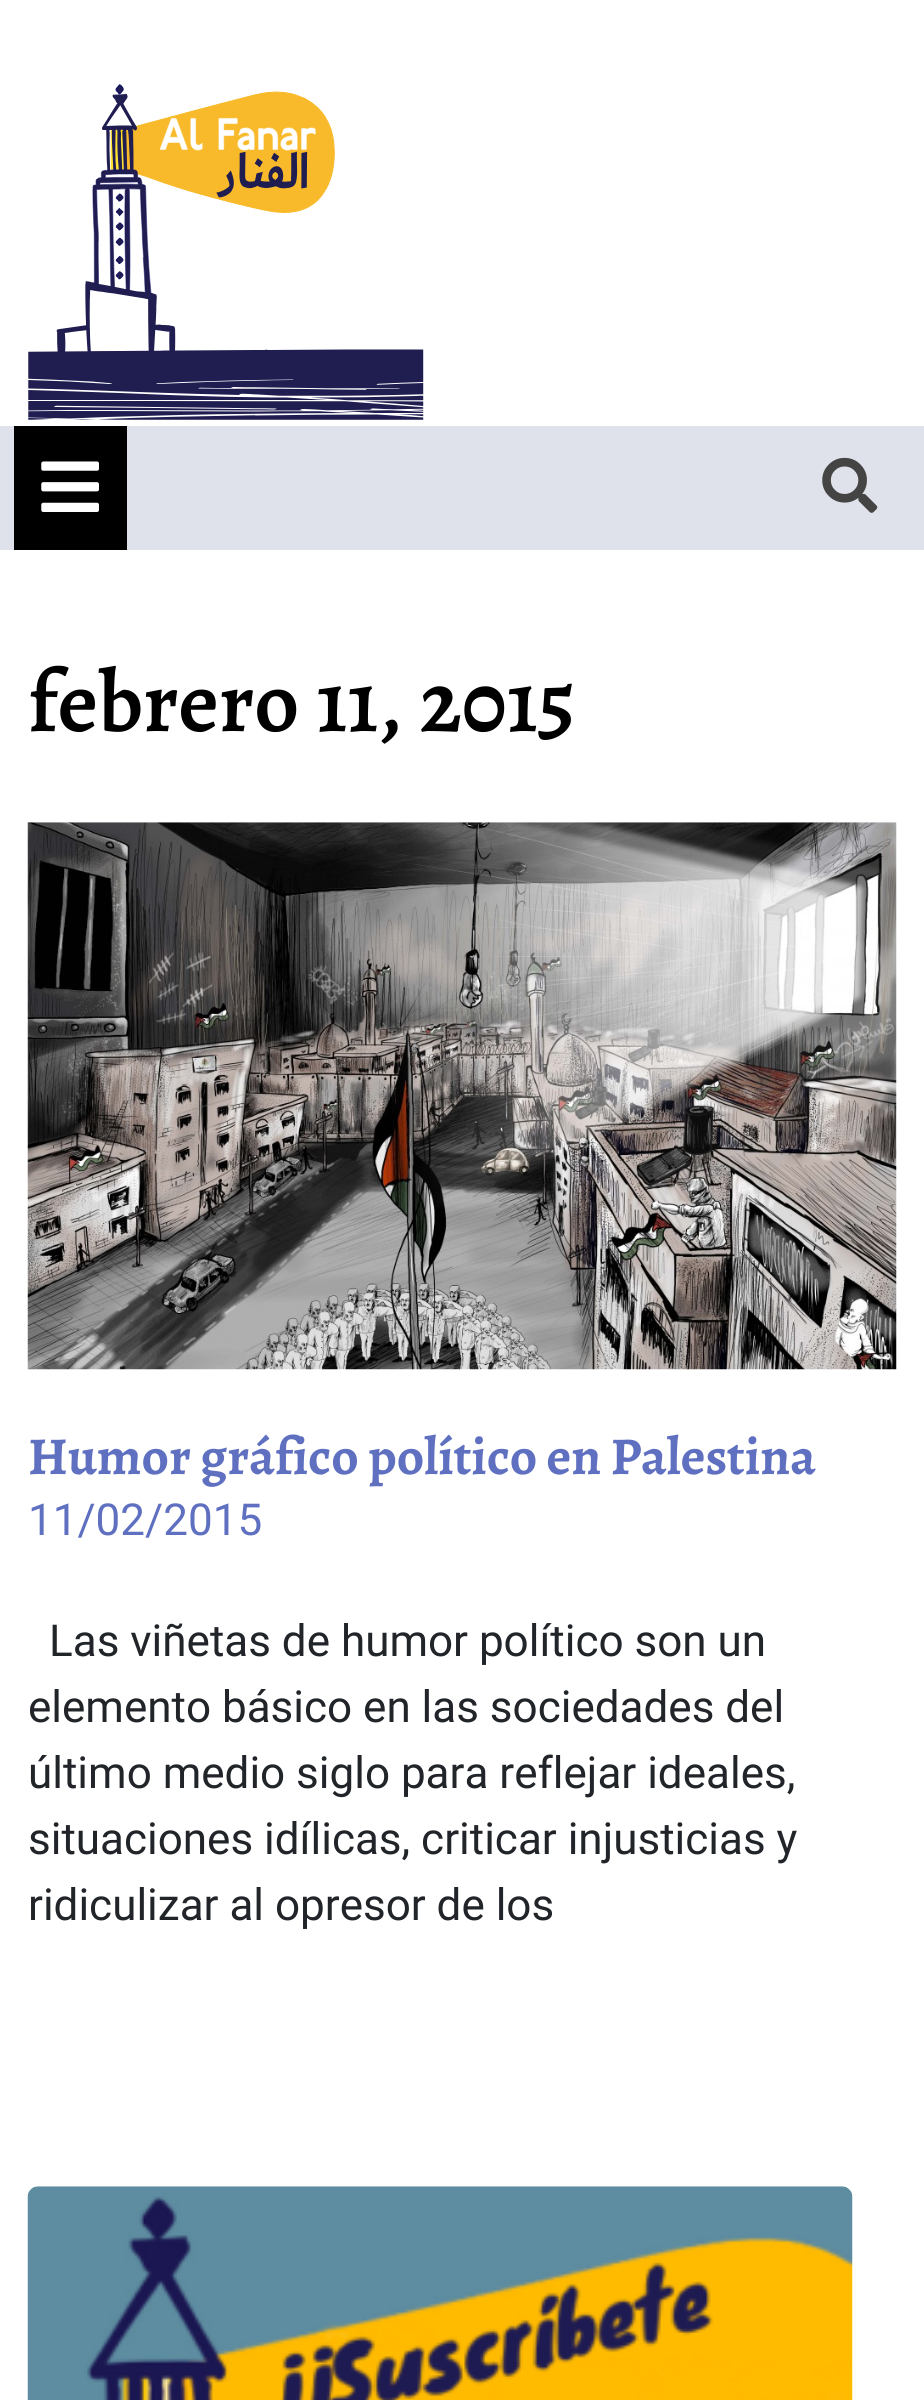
#include <cairo/cairo.h>
#include <math.h>
#include <stddef.h>

typedef struct { double x, y; const char *s; } line_t;
static cairo_t *cr;

static void rgb(unsigned color)
{
	cairo_set_source_rgb(cr, (color >> 16) / 255.0, (color >> 8 & 255) / 255.0, (color & 255) / 255.0);
}

static void tracked(double x, double y, const char *s, double letter, double word)
{
	cairo_move_to(cr, x, y);
	while (*s) {
		char ch[5] = {0};
		int n = 0;
		do ch[n++] = *s++; while ((*s & 0xC0) == 0x80);
		cairo_show_text(cr, ch);
		cairo_rel_move_to(cr, letter + word * (*ch == ' '), 0);
	}
}

static void image(const char *path, double x, double y, double w, double h)
{
	cairo_surface_t *image = cairo_image_surface_create_from_png(path);
	cairo_save(cr);
	cairo_set_source_surface(cr, image, x, y);
	cairo_rectangle(cr, x, y, w, h);
	cairo_fill(cr);
	cairo_restore(cr);
	cairo_surface_destroy(image);
}

int main(void) {
	cairo_surface_t *surface = cairo_image_surface_create(CAIRO_FORMAT_RGB24, 924, 2400);
	cr = cairo_create(surface);
	cairo_font_options_t *options = cairo_font_options_create();
	cairo_font_options_set_hint_metrics(options, CAIRO_HINT_METRICS_OFF);
	cairo_font_options_set_hint_style(options, CAIRO_HINT_STYLE_NONE);
	cairo_set_font_options(cr, options);
	cairo_set_miter_limit(cr, 4);
	rgb(0xffffff);
	cairo_paint(cr);
	image("img/1.png", 28, 84, 396, 336);
	rgb(0xdfe1eb);
	cairo_rectangle(cr, 0, 426, 924, 124);
	cairo_fill(cr);
	rgb(0x000000);
	cairo_rectangle(cr, 14, 426, 113, 124);
	cairo_fill(cr);
	image("img/2.png", 41, 461, 58, 51);
	image("img/3.png", 822, 457, 56, 56);
	image("img/4.png", 27, 822, 870, 548);
	image("img/5.png", 27, 2186, 826, 214);
	cairo_select_font_face(cr, "Alegreya SemiBold", CAIRO_FONT_SLANT_NORMAL, CAIRO_FONT_WEIGHT_NORMAL);
	cairo_set_font_size(cr, 88);
	tracked(28, 731, "febrero 11, 2015", 0, 1);
	cairo_select_font_face(cr, "Alegreya", CAIRO_FONT_SLANT_NORMAL, CAIRO_FONT_WEIGHT_BOLD);
	cairo_set_font_size(cr, 53.25);
	rgb(0x6070c1);
	cairo_move_to(cr, 28, 1474);
	cairo_show_text(cr, "Humor gráfico político en Palestina");
	cairo_select_font_face(cr, "Roboto", CAIRO_FONT_SLANT_NORMAL, CAIRO_FONT_WEIGHT_NORMAL);
	cairo_set_font_size(cr, 44);
	cairo_move_to(cr, 28, 1535);
	cairo_show_text(cr, "11/02/2015");
	rgb(0x212529);
	{
		static const line_t items[] = {
			{49, 1656, "Las viñetas de humor político son un"},
			{28, 1722, "elemento básico en las sociedades del"},
			{28, 1788, "último medio siglo para reflejar ideales,"},
			{28, 1854, "situaciones idílicas, criticar injusticias y"},
			{28, 1920, "ridiculizar al opresor de los"},
		};
		for (size_t i = 0; i < sizeof items / sizeof *items; i++) {
			cairo_move_to(cr, items[i].x, items[i].y);
			cairo_show_text(cr, items[i].s);
		}
	}
	cairo_surface_write_to_png(surface, "page.png");
	cairo_font_options_destroy(options);
	cairo_destroy(cr);
	cairo_surface_destroy(surface);
	return 0;
}
